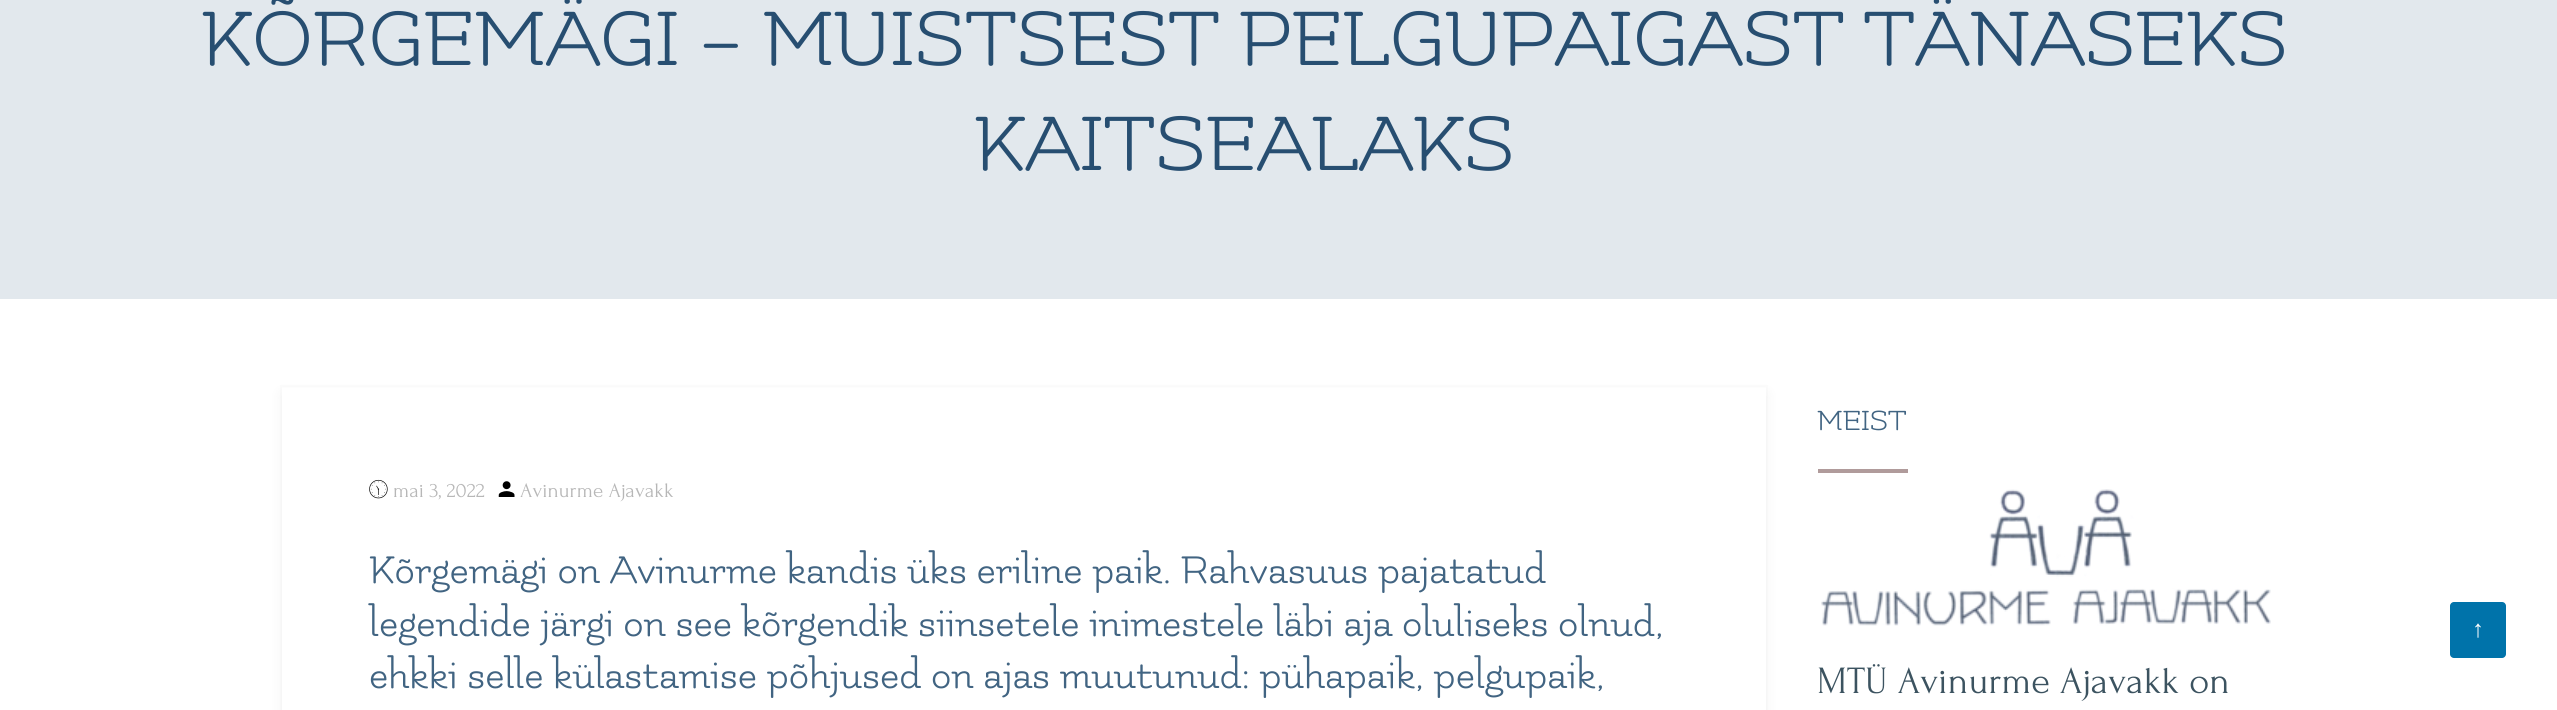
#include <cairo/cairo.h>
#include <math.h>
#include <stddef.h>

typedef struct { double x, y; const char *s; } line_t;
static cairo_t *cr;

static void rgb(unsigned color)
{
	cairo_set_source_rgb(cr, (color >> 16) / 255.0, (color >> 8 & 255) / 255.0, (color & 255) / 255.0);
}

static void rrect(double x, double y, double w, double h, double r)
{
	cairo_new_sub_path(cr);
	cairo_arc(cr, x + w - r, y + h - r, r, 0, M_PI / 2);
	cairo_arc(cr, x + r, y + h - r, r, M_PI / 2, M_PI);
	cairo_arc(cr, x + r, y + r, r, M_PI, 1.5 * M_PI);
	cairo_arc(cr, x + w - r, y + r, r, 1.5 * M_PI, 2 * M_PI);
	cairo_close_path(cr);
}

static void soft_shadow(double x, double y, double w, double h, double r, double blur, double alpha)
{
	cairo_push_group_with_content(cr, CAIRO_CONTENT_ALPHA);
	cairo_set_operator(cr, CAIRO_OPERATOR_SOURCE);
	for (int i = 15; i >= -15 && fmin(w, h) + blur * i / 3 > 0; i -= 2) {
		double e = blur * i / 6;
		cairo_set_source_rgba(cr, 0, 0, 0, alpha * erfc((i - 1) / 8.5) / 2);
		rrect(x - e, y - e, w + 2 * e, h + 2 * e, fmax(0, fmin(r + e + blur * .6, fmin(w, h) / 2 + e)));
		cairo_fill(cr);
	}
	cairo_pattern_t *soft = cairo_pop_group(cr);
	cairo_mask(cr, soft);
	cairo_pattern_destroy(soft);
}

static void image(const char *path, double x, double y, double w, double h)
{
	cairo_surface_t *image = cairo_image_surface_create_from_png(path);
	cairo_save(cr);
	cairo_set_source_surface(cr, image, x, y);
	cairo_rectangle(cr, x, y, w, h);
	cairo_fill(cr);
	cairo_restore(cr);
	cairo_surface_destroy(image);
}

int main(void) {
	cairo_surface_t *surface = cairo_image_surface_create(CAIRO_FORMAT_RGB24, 2557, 710);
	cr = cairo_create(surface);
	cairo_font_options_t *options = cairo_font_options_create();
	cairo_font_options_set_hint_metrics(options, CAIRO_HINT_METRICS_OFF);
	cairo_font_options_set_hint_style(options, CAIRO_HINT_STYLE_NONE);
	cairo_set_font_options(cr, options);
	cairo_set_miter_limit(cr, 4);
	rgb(0xffffff);
	cairo_paint(cr);
	rgb(0xe2e8ed);
	cairo_rectangle(cr, 0, 0, 2557, 299);
	cairo_fill(cr);
	cairo_rectangle(cr, 281, 386, 1486, 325);
	rgb(0xfcfcfc);
	cairo_stroke(cr);
	rgb(0x000000);
	soft_shadow(282, 394, 1484, 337, 0, 7, 0.05);
	rgb(0xffffff);
	cairo_rectangle(cr, 282, 388, 1484, 322);
	cairo_fill(cr);
	image("img/1.png", 369, 479, 19, 20);
	image("img/2.png", 498, 481, 17, 16);
	rgb(0xb09b9b);
	cairo_rectangle(cr, 1818, 469, 90, 4);
	cairo_fill(cr);
	image("img/3.png", 1821, 489, 450, 137);
	rgb(0x0073aa);
	rrect(2450, 602, 56, 56, 4);
	cairo_fill(cr);
	cairo_select_font_face(cr, "Flamenco", CAIRO_FONT_SLANT_NORMAL, CAIRO_FONT_WEIGHT_NORMAL);
	cairo_set_font_size(cr, 87.5);
	rgb(0x274e71);
	cairo_move_to(cr, 201, 65);
	cairo_show_text(cr, "KÕRGEMÄGI – MUISTSEST PELGUPAIGAST TÄNASEKS");
	cairo_move_to(cr, 974, 170);
	cairo_show_text(cr, "KAITSEALAKS");
	cairo_select_font_face(cr, "Forum", CAIRO_FONT_SLANT_NORMAL, CAIRO_FONT_WEIGHT_NORMAL);
	cairo_set_font_size(cr, 21);
	rgb(0xb7b7b7);
	cairo_move_to(cr, 393, 497);
	cairo_show_text(cr, "mai 3, 2022");
	cairo_move_to(cr, 520, 497);
	cairo_show_text(cr, "Avinurme Ajavakk");
	cairo_select_font_face(cr, "Flamenco", CAIRO_FONT_SLANT_NORMAL, CAIRO_FONT_WEIGHT_NORMAL);
	cairo_set_font_size(cr, 43.75);
	rgb(0x416482);
	{
		static const line_t items[] = {
			{369, 583, "Kõrgemägi on Avinurme kandis üks eriline paik. Rahvasuus pajatatud"},
			{369, 636, "legendide järgi on see kõrgendik siinsetele inimestele läbi aja oluliseks olnud,"},
			{369, 688, "ehkki selle külastamise põhjused on ajas muutunud: pühapaik, pelgupaik,"},
		};
		for (size_t i = 0; i < sizeof items / sizeof *items; i++) {
			cairo_move_to(cr, items[i].x, items[i].y);
			cairo_show_text(cr, items[i].s);
		}
	}
	cairo_set_font_size(cr, 31.5);
	cairo_move_to(cr, 1817, 430);
	cairo_show_text(cr, "MEIST");
	cairo_select_font_face(cr, "Forum", CAIRO_FONT_SLANT_NORMAL, CAIRO_FONT_WEIGHT_NORMAL);
	cairo_set_font_size(cr, 38.5);
	rgb(0x3c5360);
	cairo_move_to(cr, 1817, 693);
	cairo_show_text(cr, "MTÜ Avinurme Ajavakk on");
	cairo_select_font_face(cr, "Liberation Serif", CAIRO_FONT_SLANT_NORMAL, CAIRO_FONT_WEIGHT_NORMAL);
	cairo_set_font_size(cr, 24);
	rgb(0xffffff);
	cairo_move_to(cr, 2472, 637);
	cairo_show_text(cr, "↑");
	cairo_surface_write_to_png(surface, "page.png");
	cairo_font_options_destroy(options);
	cairo_destroy(cr);
	cairo_surface_destroy(surface);
	return 0;
}
